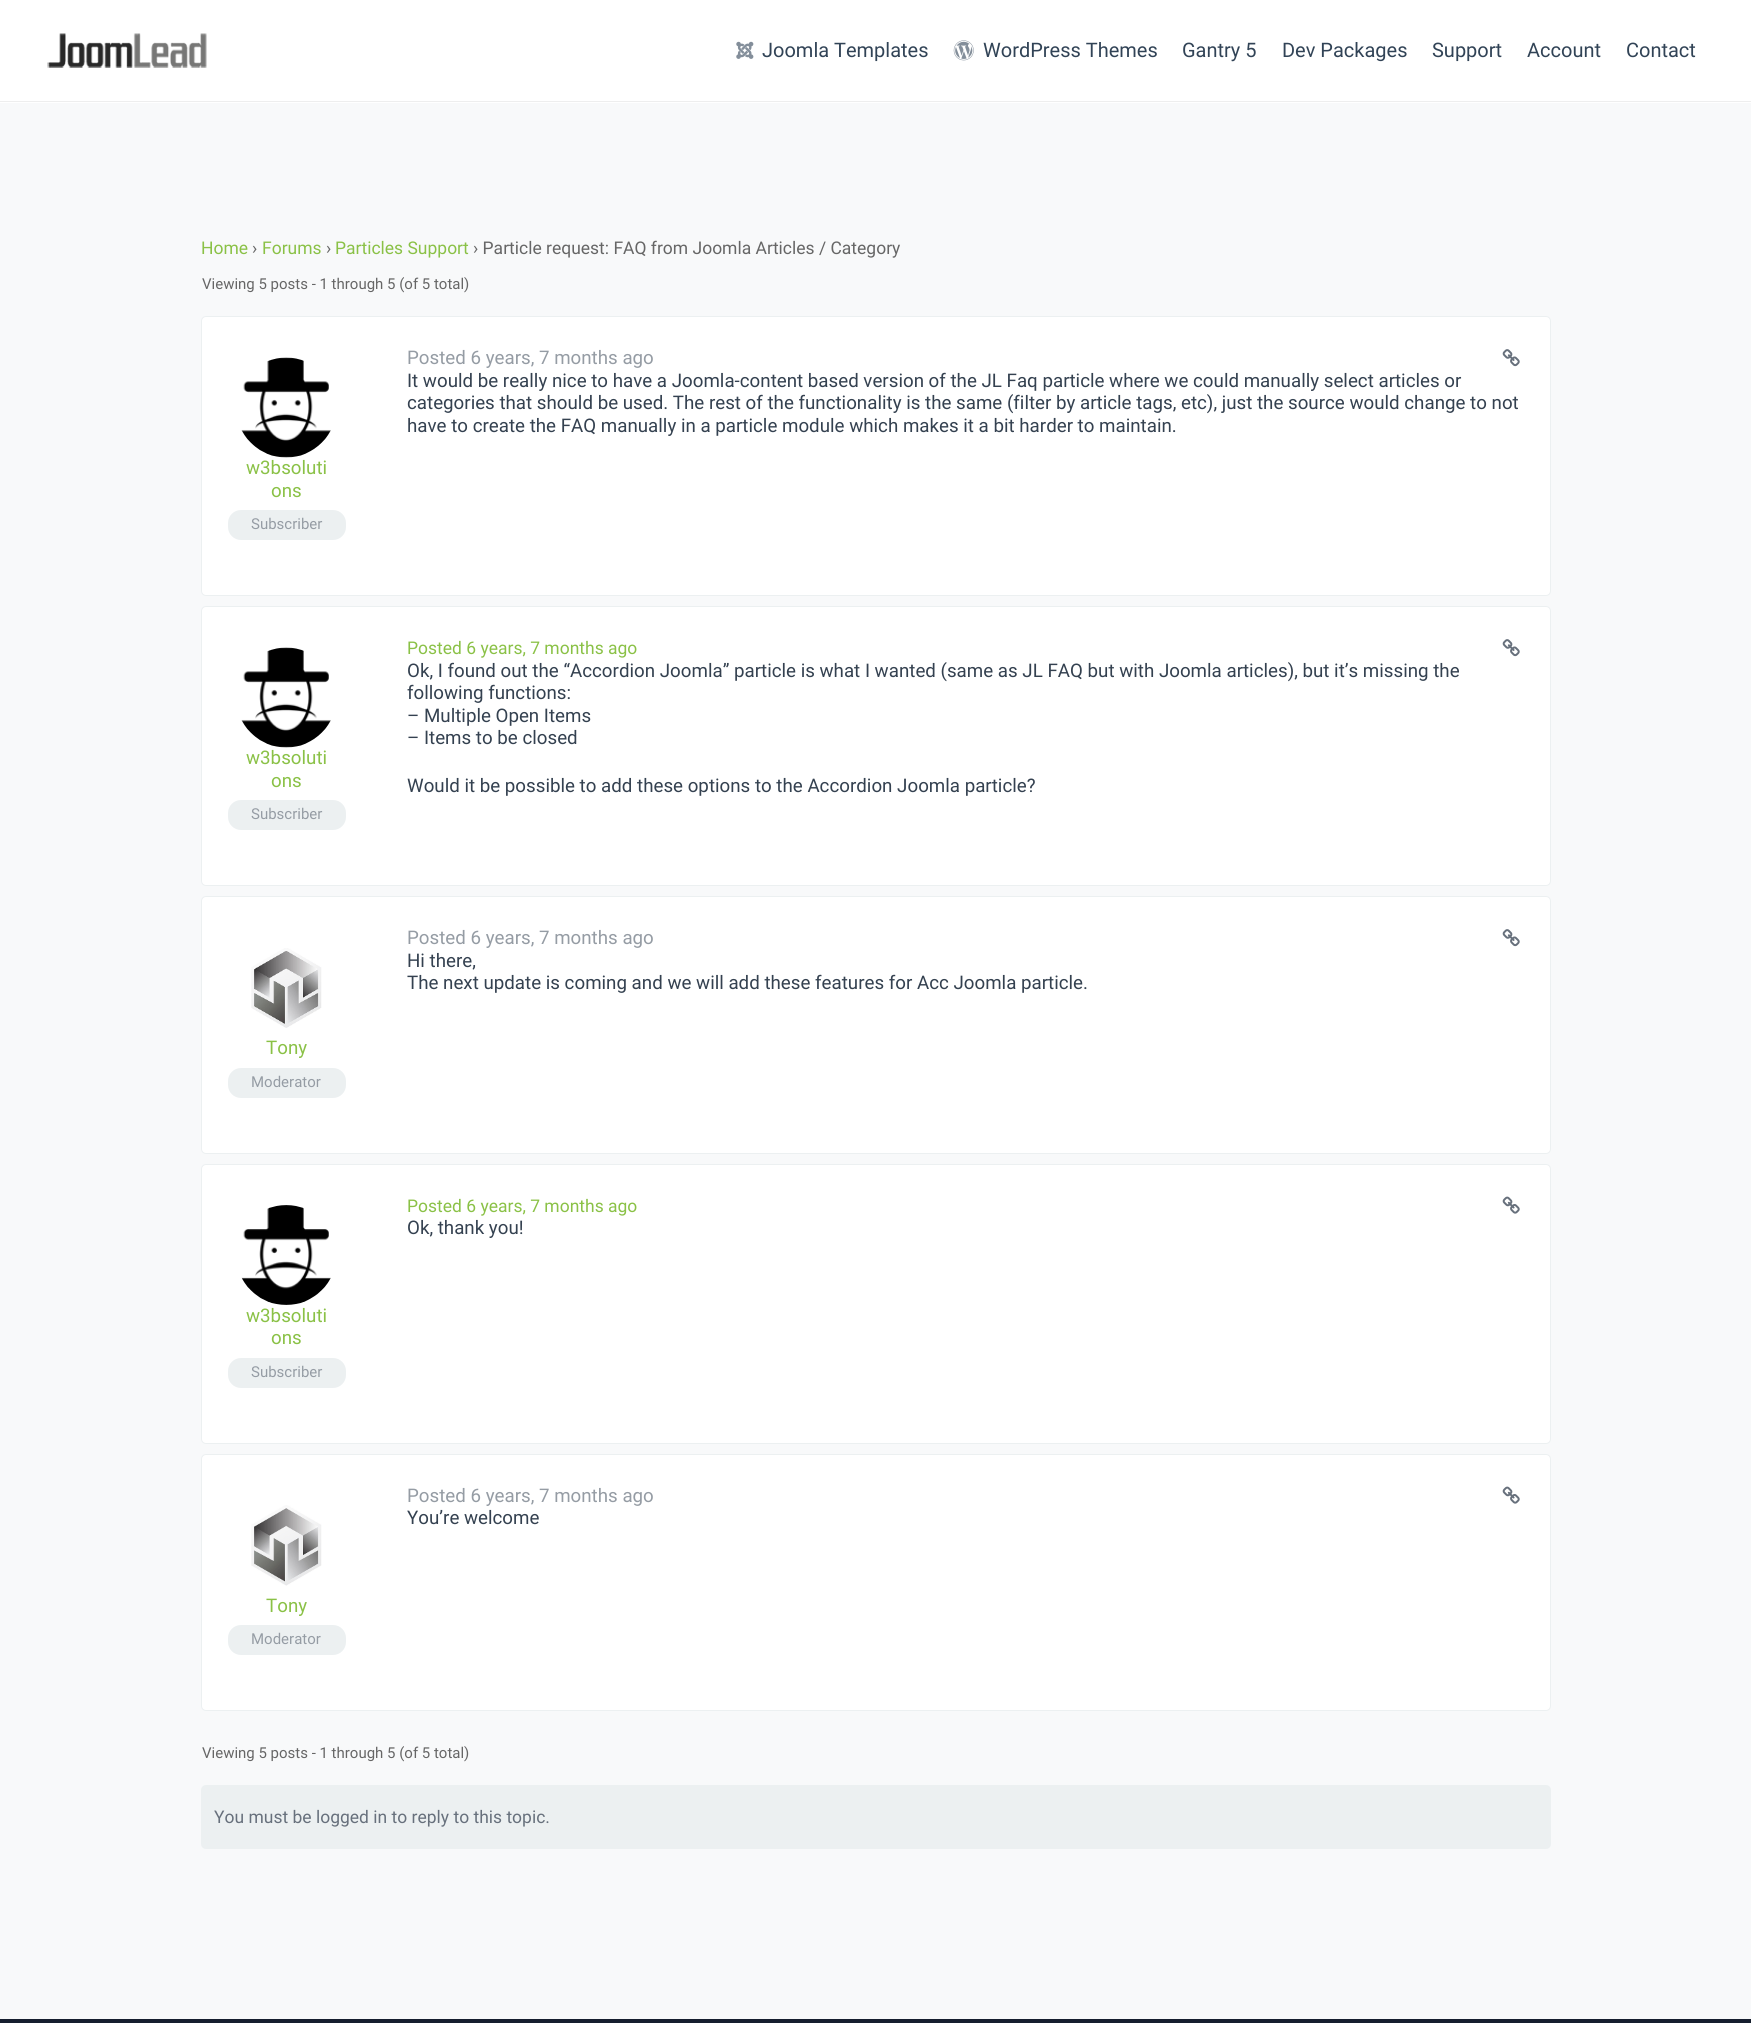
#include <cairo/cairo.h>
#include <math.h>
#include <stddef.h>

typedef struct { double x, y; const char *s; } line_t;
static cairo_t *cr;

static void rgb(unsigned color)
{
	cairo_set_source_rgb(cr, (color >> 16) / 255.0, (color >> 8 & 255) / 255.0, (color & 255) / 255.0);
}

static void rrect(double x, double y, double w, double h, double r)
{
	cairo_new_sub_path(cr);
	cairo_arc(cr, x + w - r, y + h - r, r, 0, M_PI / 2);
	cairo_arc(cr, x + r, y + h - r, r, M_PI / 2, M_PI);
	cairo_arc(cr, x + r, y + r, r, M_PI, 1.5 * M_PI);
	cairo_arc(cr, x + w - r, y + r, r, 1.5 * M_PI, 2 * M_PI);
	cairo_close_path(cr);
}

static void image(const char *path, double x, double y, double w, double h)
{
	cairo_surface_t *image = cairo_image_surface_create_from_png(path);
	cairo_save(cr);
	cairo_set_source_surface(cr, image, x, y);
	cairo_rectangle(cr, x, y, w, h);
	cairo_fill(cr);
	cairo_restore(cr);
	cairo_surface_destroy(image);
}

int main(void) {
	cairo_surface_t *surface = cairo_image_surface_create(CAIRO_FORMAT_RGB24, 1751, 2023);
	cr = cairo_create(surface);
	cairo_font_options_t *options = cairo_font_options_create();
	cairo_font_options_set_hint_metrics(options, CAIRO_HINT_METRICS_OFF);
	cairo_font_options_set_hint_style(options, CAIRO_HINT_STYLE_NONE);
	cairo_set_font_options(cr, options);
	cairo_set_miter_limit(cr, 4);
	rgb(0xf8f9fa);
	cairo_paint(cr);
	rgb(0xffffff);
	cairo_rectangle(cr, 0, 0, 1751, 103);
	cairo_fill(cr);
	rgb(0xeeeeee);
	cairo_rectangle(cr, 0, 101, 1751, 1);
	cairo_fill(cr);
	image("img/1.png", 47, 33, 160, 35);
	image("img/2.png", 736, 41, 18, 18);
	image("img/3.png", 953, 40, 21, 21);
	rgb(0xffffff);
	rrect(201.5, 316.5, 1349, 279, 4.5);
	cairo_fill_preserve(cr);
	rgb(0xecf0f1);
	cairo_set_line_width(cr, 1);
	cairo_stroke(cr);
	image("img/4.png", 1502, 349, 18, 18);
	image("img/5.png", 241, 357, 90, 101);
	rrect(228, 510, 118, 30, 13);
	cairo_fill(cr);
	rgb(0xffffff);
	rrect(201.5, 606.5, 1349, 279, 4.5);
	cairo_fill_preserve(cr);
	rgb(0xecf0f1);
	cairo_stroke(cr);
	image("img/5.png", 241, 647, 90, 101);
	rrect(228, 800, 118, 30, 13);
	cairo_fill(cr);
	image("img/4.png", 1502, 639, 18, 18);
	rgb(0xffffff);
	rrect(201.5, 896.5, 1349, 257, 4.5);
	cairo_fill_preserve(cr);
	rgb(0xecf0f1);
	cairo_stroke(cr);
	image("img/4.png", 1502, 929, 18, 18);
	image("img/6.png", 251, 948, 71, 80);
	rrect(228, 1068, 118, 30, 13);
	cairo_fill(cr);
	rgb(0xffffff);
	rrect(201.5, 1164.5, 1349, 279, 4.5);
	cairo_fill_preserve(cr);
	rgb(0xecf0f1);
	cairo_stroke(cr);
	image("img/7.png", 1502, 1196, 18, 18);
	image("img/8.png", 241, 1205, 90, 100);
	rrect(228, 1358, 118, 30, 13);
	cairo_fill(cr);
	rgb(0xffffff);
	rrect(201.5, 1454.5, 1349, 256, 4.5);
	cairo_fill_preserve(cr);
	rgb(0xecf0f1);
	cairo_stroke(cr);
	image("img/7.png", 1502, 1486, 18, 18);
	image("img/9.png", 251, 1505, 71, 81);
	rrect(228, 1625, 118, 30, 13);
	cairo_fill(cr);
	rrect(201, 1785, 1350, 64, 5);
	cairo_fill(cr);
	rgb(0x161e2e);
	cairo_rectangle(cr, 0, 2019, 1751, 4);
	cairo_fill(cr);
	cairo_select_font_face(cr, "Roboto", CAIRO_FONT_SLANT_NORMAL, CAIRO_FONT_WEIGHT_NORMAL);
	cairo_set_font_size(cr, 20);
	rgb(0x314356);
	{
		static const line_t items[] = {
			{762, 57, "Joomla Templates"},
			{983, 57, "WordPress Themes"},
			{1182, 57, "Gantry 5"},
			{1282, 57, "Dev Packages"},
			{1432, 57, "Support"},
			{1527, 57, "Account"},
			{1626, 57, "Contact"},
		};
		for (size_t i = 0; i < sizeof items / sizeof *items; i++) {
			cairo_move_to(cr, items[i].x, items[i].y);
			cairo_show_text(cr, items[i].s);
		}
	}
	cairo_set_font_size(cr, 17.5);
	rgb(0x8ac146);
	cairo_move_to(cr, 201, 254);
	cairo_show_text(cr, "Home");
	rgb(0x666666);
	cairo_move_to(cr, 252, 254);
	cairo_show_text(cr, "›");
	rgb(0x8ac146);
	cairo_move_to(cr, 262, 254);
	cairo_show_text(cr, "Forums");
	rgb(0x666666);
	cairo_move_to(cr, 326, 254);
	cairo_show_text(cr, "›");
	rgb(0x8ac146);
	cairo_move_to(cr, 335, 254);
	cairo_show_text(cr, "Particles Support");
	rgb(0x666666);
	cairo_move_to(cr, 473, 254);
	cairo_show_text(cr, "› Particle request: FAQ from Joomla Articles / Category");
	cairo_set_font_size(cr, 15);
	cairo_move_to(cr, 202, 289);
	cairo_show_text(cr, "Viewing 5 posts - 1 through 5 (of 5 total)");
	cairo_set_font_size(cr, 18.75);
	rgb(0x959ca4);
	cairo_move_to(cr, 407, 364);
	cairo_show_text(cr, "Posted 6 years, 7 months ago");
	rgb(0x344150);
	{
		static const line_t items[] = {
			{407, 387, "It would be really nice to have a Joomla-content based version of the JL Faq particle where we could manually select articles or"},
			{407, 409, "categories that should be used. The rest of the functionality is the same (filter by article tags, etc), just the source would change to not"},
			{407, 432, "have to create the FAQ manually in a particle module which makes it a bit harder to maintain."},
		};
		for (size_t i = 0; i < sizeof items / sizeof *items; i++) {
			cairo_move_to(cr, items[i].x, items[i].y);
			cairo_show_text(cr, items[i].s);
		}
	}
	rgb(0x8ac146);
	cairo_move_to(cr, 246, 474);
	cairo_show_text(cr, "w3bsoluti");
	cairo_move_to(cr, 271, 497);
	cairo_show_text(cr, "ons");
	cairo_set_font_size(cr, 15);
	rgb(0x959ca4);
	cairo_move_to(cr, 251, 529);
	cairo_show_text(cr, "Subscriber");
	cairo_set_font_size(cr, 18.75);
	rgb(0x8ac146);
	cairo_move_to(cr, 246, 764);
	cairo_show_text(cr, "w3bsoluti");
	cairo_move_to(cr, 271, 787);
	cairo_show_text(cr, "ons");
	cairo_set_font_size(cr, 15);
	rgb(0x959ca4);
	cairo_move_to(cr, 251, 819);
	cairo_show_text(cr, "Subscriber");
	cairo_set_font_size(cr, 17.5);
	rgb(0x8ac146);
	cairo_move_to(cr, 407, 654);
	cairo_show_text(cr, "Posted 6 years, 7 months ago");
	cairo_set_font_size(cr, 18.75);
	rgb(0x344150);
	{
		static const line_t items[] = {
			{407, 677, "Ok, I found out the “Accordion Joomla” particle is what I wanted (same as JL FAQ but with Joomla articles), but it’s missing the"},
			{407, 699, "following functions:"},
			{407, 722, "– Multiple Open Items"},
			{407, 744, "– Items to be closed"},
			{407, 792, "Would it be possible to add these options to the Accordion Joomla particle?"},
		};
		for (size_t i = 0; i < sizeof items / sizeof *items; i++) {
			cairo_move_to(cr, items[i].x, items[i].y);
			cairo_show_text(cr, items[i].s);
		}
	}
	rgb(0x959ca4);
	cairo_move_to(cr, 407, 944);
	cairo_show_text(cr, "Posted 6 years, 7 months ago");
	rgb(0x344150);
	cairo_move_to(cr, 407, 967);
	cairo_show_text(cr, "Hi there,");
	cairo_move_to(cr, 407, 989);
	cairo_show_text(cr, "The next update is coming and we will add these features for Acc Joomla particle.");
	rgb(0x8ac146);
	cairo_move_to(cr, 266, 1054);
	cairo_show_text(cr, "Tony");
	cairo_set_font_size(cr, 15);
	rgb(0x959ca4);
	cairo_move_to(cr, 251, 1087);
	cairo_show_text(cr, "Moderator");
	cairo_set_font_size(cr, 17.5);
	rgb(0x8ac146);
	cairo_move_to(cr, 407, 1212);
	cairo_show_text(cr, "Posted 6 years, 7 months ago");
	cairo_set_font_size(cr, 18.75);
	rgb(0x344150);
	cairo_move_to(cr, 407, 1234);
	cairo_show_text(cr, "Ok, thank you!");
	rgb(0x8ac146);
	cairo_move_to(cr, 246, 1322);
	cairo_show_text(cr, "w3bsoluti");
	cairo_move_to(cr, 271, 1344);
	cairo_show_text(cr, "ons");
	cairo_set_font_size(cr, 15);
	rgb(0x959ca4);
	cairo_move_to(cr, 251, 1377);
	cairo_show_text(cr, "Subscriber");
	cairo_set_font_size(cr, 18.75);
	cairo_move_to(cr, 407, 1502);
	cairo_show_text(cr, "Posted 6 years, 7 months ago");
	rgb(0x344150);
	cairo_move_to(cr, 407, 1524);
	cairo_show_text(cr, "You’re welcome");
	rgb(0x8ac146);
	cairo_move_to(cr, 266, 1612);
	cairo_show_text(cr, "Tony");
	cairo_set_font_size(cr, 15);
	rgb(0x959ca4);
	cairo_move_to(cr, 251, 1644);
	cairo_show_text(cr, "Moderator");
	rgb(0x666666);
	cairo_move_to(cr, 202, 1758);
	cairo_show_text(cr, "Viewing 5 posts - 1 through 5 (of 5 total)");
	cairo_set_font_size(cr, 17.5);
	rgb(0x67707c);
	cairo_move_to(cr, 214, 1823);
	cairo_show_text(cr, "You must be logged in to reply to this topic.");
	cairo_surface_write_to_png(surface, "page.png");
	cairo_font_options_destroy(options);
	cairo_destroy(cr);
	cairo_surface_destroy(surface);
	return 0;
}
